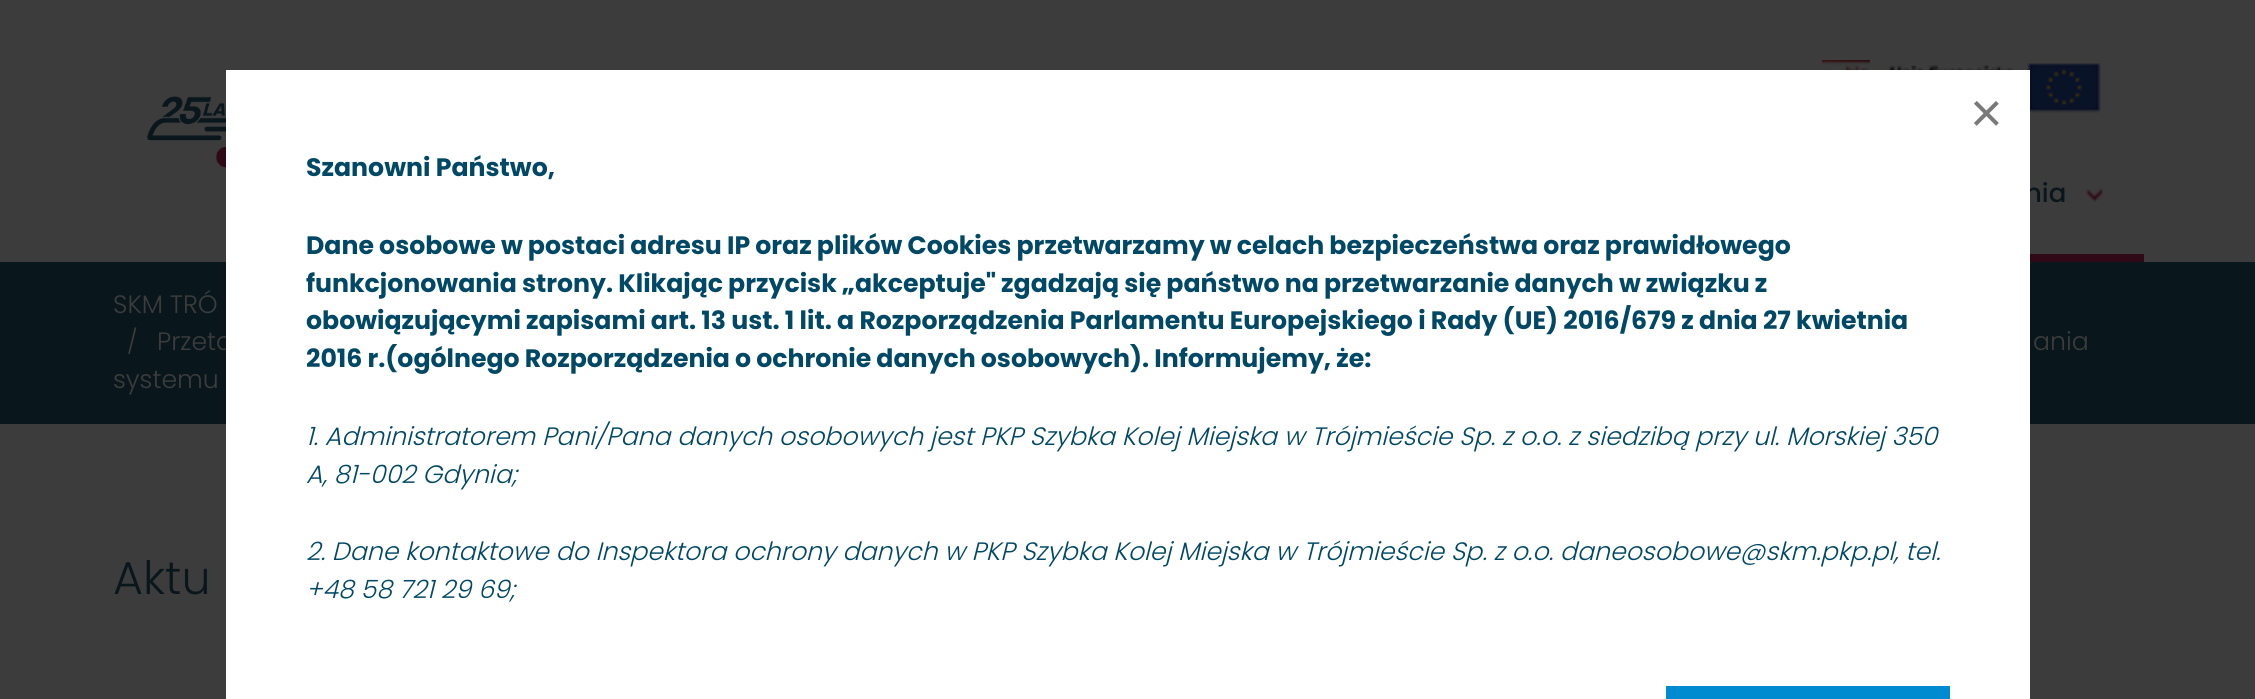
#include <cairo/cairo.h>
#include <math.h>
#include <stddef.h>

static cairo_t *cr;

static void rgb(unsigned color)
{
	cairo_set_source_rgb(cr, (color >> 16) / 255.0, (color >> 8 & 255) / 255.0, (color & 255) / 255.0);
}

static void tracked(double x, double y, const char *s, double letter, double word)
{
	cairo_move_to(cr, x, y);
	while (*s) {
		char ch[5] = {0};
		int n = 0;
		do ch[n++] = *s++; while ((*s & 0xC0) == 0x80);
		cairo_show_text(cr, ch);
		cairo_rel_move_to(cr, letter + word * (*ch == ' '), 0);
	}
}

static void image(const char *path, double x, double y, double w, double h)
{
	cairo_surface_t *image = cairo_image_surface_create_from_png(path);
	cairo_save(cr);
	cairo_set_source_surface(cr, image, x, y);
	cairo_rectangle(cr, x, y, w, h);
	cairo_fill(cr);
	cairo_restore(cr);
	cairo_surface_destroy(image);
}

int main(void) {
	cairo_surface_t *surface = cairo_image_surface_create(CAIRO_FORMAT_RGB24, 2255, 699);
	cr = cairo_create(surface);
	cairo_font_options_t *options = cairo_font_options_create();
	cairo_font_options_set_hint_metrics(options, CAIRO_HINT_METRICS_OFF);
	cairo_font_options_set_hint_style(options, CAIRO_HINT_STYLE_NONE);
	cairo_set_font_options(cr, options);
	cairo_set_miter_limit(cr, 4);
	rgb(0x3c3c3c);
	cairo_paint(cr);
	image("img/1.png", 147, 96, 79, 72);
	image("img/2.png", 1822, 60, 48, 10);
	image("img/3.png", 1878, 62, 223, 51);
	rgb(0x2f0916);
	cairo_rectangle(cr, 2030, 254, 114, 8);
	cairo_fill(cr);
	image("img/4.png", 2086, 188, 18, 14);
	rgb(0x09171d);
	cairo_rectangle(cr, 0, 262, 2255, 162);
	cairo_fill(cr);
	cairo_select_font_face(cr, "Poppins Medium", CAIRO_FONT_SLANT_NORMAL, CAIRO_FONT_WEIGHT_NORMAL);
	cairo_set_font_size(cr, 26);
	cairo_move_to(cr, 2025, 202);
	cairo_show_text(cr, "nia");
	cairo_select_font_face(cr, "Poppins Light", CAIRO_FONT_SLANT_NORMAL, CAIRO_FONT_WEIGHT_NORMAL);
	cairo_set_font_size(cr, 25.2);
	rgb(0x3c3c3c);
	cairo_move_to(cr, 113, 313);
	cairo_show_text(cr, "SKM TRÓ");
	cairo_set_font_size(cr, 24);
	cairo_move_to(cr, 127, 350);
	cairo_show_text(cr, "/");
	cairo_set_font_size(cr, 25.2);
	cairo_move_to(cr, 157, 350);
	cairo_show_text(cr, "Przeta");
	rgb(0xffffff);
	cairo_rectangle(cr, 226, 70, 1804, 629);
	cairo_fill(cr);
	cairo_select_font_face(cr, "Liberation Sans", CAIRO_FONT_SLANT_NORMAL, CAIRO_FONT_WEIGHT_NORMAL);
	cairo_set_font_size(cr, 56);
	rgb(0x7a7a7a);
	cairo_move_to(cr, 1970, 132);
	cairo_show_text(cr, "×");
	cairo_select_font_face(cr, "Poppins Light", CAIRO_FONT_SLANT_ITALIC, CAIRO_FONT_WEIGHT_NORMAL);
	cairo_set_font_size(cr, 25.2);
	rgb(0x004866);
	cairo_move_to(cr, 306, 598);
	cairo_show_text(cr, "+48 58 721 29 69;");
	tracked(306, 560, "2. Dane kontaktowe do Inspektora ochrony danych w PKP Szybka Kolej Miejska w Trójmieście Sp. z o.o. daneosobowe@skm.pkp.pl, tel.", 0, -0.1);
	cairo_move_to(cr, 306, 483);
	cairo_show_text(cr, "A, 81-002 Gdynia;");
	tracked(306, 445, "1. Administratorem Pani/Pana danych osobowych jest PKP Szybka Kolej Miejska w Trójmieście Sp. z o.o. z siedzibą przy ul. Morskiej 350", 0, -0.1);
	cairo_select_font_face(cr, "Poppins", CAIRO_FONT_SLANT_NORMAL, CAIRO_FONT_WEIGHT_BOLD);
	tracked(306, 367, "2016 r.(ogólnego Rozporządzenia o ochronie danych osobowych). Informujemy, że:", 0, -0.25);
	tracked(306, 329, "obowiązującymi zapisami art. 13 ust. 1 lit. a Rozporządzenia Parlamentu Europejskiego i Rady (UE) 2016/679 z dnia 27 kwietnia", 0, -0.1);
	tracked(306, 292, "funkcjonowania strony. Klikając przycisk „akceptuje\" zgadzają się państwo na przetwarzanie danych w związku z", 0, -0.25);
	tracked(306, 254, "Dane osobowe w postaci adresu IP oraz plików Cookies przetwarzamy w celach bezpieczeństwa oraz prawidłowego", 0, -0.2);
	cairo_move_to(cr, 306, 176);
	cairo_show_text(cr, "Szanowni Państwo,");
	rgb(0x008bd0);
	cairo_rectangle(cr, 1666, 686, 284, 13);
	cairo_fill(cr);
	cairo_select_font_face(cr, "Poppins Light", CAIRO_FONT_SLANT_NORMAL, CAIRO_FONT_WEIGHT_NORMAL);
	rgb(0x3c3c3c);
	cairo_move_to(cr, 2033, 350);
	cairo_show_text(cr, "ania");
	tracked(113, 388, "systemu", 0, -0.1);
	cairo_set_font_size(cr, 46);
	rgb(0x09171d);
	cairo_move_to(cr, 113, 594);
	cairo_show_text(cr, "Aktu");
	cairo_surface_write_to_png(surface, "page.png");
	cairo_font_options_destroy(options);
	cairo_destroy(cr);
	cairo_surface_destroy(surface);
	return 0;
}
